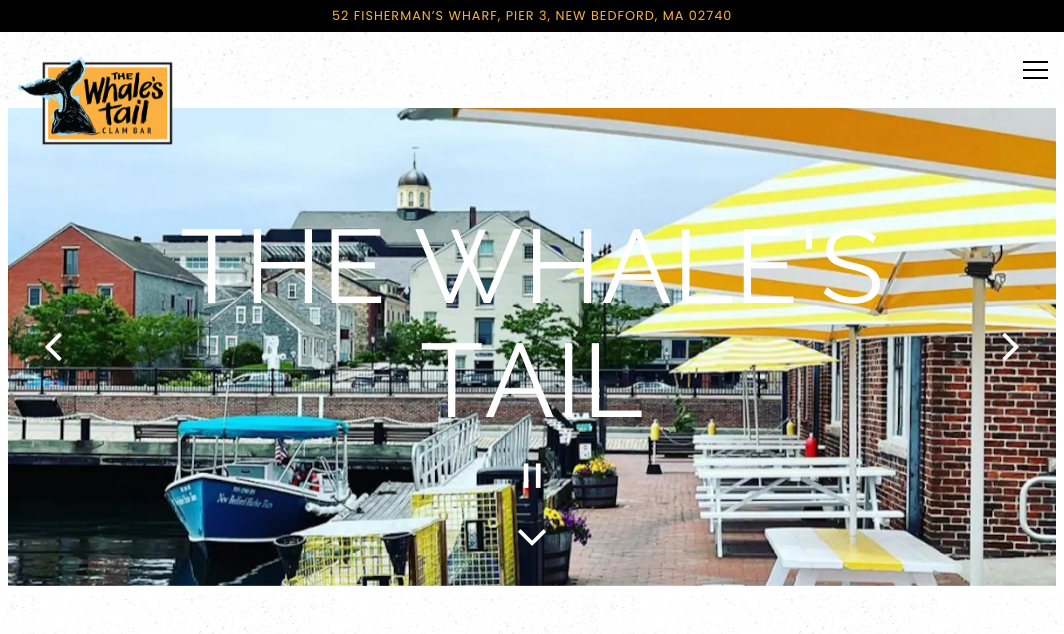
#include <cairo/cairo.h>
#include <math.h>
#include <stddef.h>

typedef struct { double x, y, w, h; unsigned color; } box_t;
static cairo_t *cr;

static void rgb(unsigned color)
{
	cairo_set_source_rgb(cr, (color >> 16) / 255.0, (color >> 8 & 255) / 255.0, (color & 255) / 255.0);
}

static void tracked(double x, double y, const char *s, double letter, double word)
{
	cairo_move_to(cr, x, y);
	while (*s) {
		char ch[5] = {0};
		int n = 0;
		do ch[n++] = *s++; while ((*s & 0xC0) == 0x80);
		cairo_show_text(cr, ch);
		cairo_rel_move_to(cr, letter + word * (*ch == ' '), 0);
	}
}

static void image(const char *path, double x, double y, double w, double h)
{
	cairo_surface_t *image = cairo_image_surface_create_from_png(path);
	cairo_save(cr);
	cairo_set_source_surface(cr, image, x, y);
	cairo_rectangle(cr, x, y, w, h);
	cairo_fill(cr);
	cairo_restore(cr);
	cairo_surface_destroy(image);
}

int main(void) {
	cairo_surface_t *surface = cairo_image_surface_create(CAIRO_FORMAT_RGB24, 1064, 634);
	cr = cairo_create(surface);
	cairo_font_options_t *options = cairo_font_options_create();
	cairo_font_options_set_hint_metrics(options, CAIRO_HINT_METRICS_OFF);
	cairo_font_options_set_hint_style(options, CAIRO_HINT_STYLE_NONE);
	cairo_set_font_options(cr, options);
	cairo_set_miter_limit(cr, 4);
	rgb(0xffffff);
	cairo_paint(cr);
	image("img/1.png", 1, 594, 1063, 40);
	image("img/2.png", 0, 32, 1064, 68);
	rgb(0x000000);
	cairo_rectangle(cr, 0, 0, 1064, 32);
	cairo_fill(cr);
	image("img/4.png", 8, 108, 1048, 478);
	image("img/3.png", 17, 54, 156, 91);
	{
		static const box_t items[] = {
			{1023, 61, 25, 2, 0x000000},
			{1023, 69, 25, 2, 0x000000},
			{1023, 77, 25, 2, 0x000000},
		};
		for (size_t i = 0; i < sizeof items / sizeof *items; i++) {
			rgb(items[i].color);
			cairo_rectangle(cr, items[i].x, items[i].y, items[i].w, items[i].h);
			cairo_fill(cr);
		}
	}
	image("img/5.png", 45, 333, 17, 28);
	image("img/6.png", 1002, 333, 17, 28);
	image("img/7.png", 518, 529, 28, 17);
	cairo_select_font_face(cr, "Poppins", CAIRO_FONT_SLANT_NORMAL, CAIRO_FONT_WEIGHT_NORMAL);
	cairo_set_font_size(cr, 12.8);
	rgb(0xfcb040);
	tracked(332, 20, "52 FISHERMAN’S WHARF, PIER 3, NEW BEDFORD, MA 02740", 1, 0);
	cairo_select_font_face(cr, "Raleway", CAIRO_FONT_SLANT_NORMAL, CAIRO_FONT_WEIGHT_NORMAL);
	cairo_set_font_size(cr, 104);
	rgb(0xffffff);
	tracked(180, 303, "THE WHALE'S", 1, 0);
	tracked(420, 417, "TAIL", 1, 0);
	cairo_select_font_face(cr, "Roboto", CAIRO_FONT_SLANT_NORMAL, CAIRO_FONT_WEIGHT_NORMAL);
	cairo_set_font_size(cr, 60);
	cairo_save(cr);
	cairo_translate(cr, 512, 459);
	cairo_rotate(cr, 90 * M_PI / 180);
	tracked(0, 0, "=", 1, 0);
	cairo_restore(cr);
	cairo_surface_write_to_png(surface, "page.png");
	cairo_font_options_destroy(options);
	cairo_destroy(cr);
	cairo_surface_destroy(surface);
	return 0;
}
